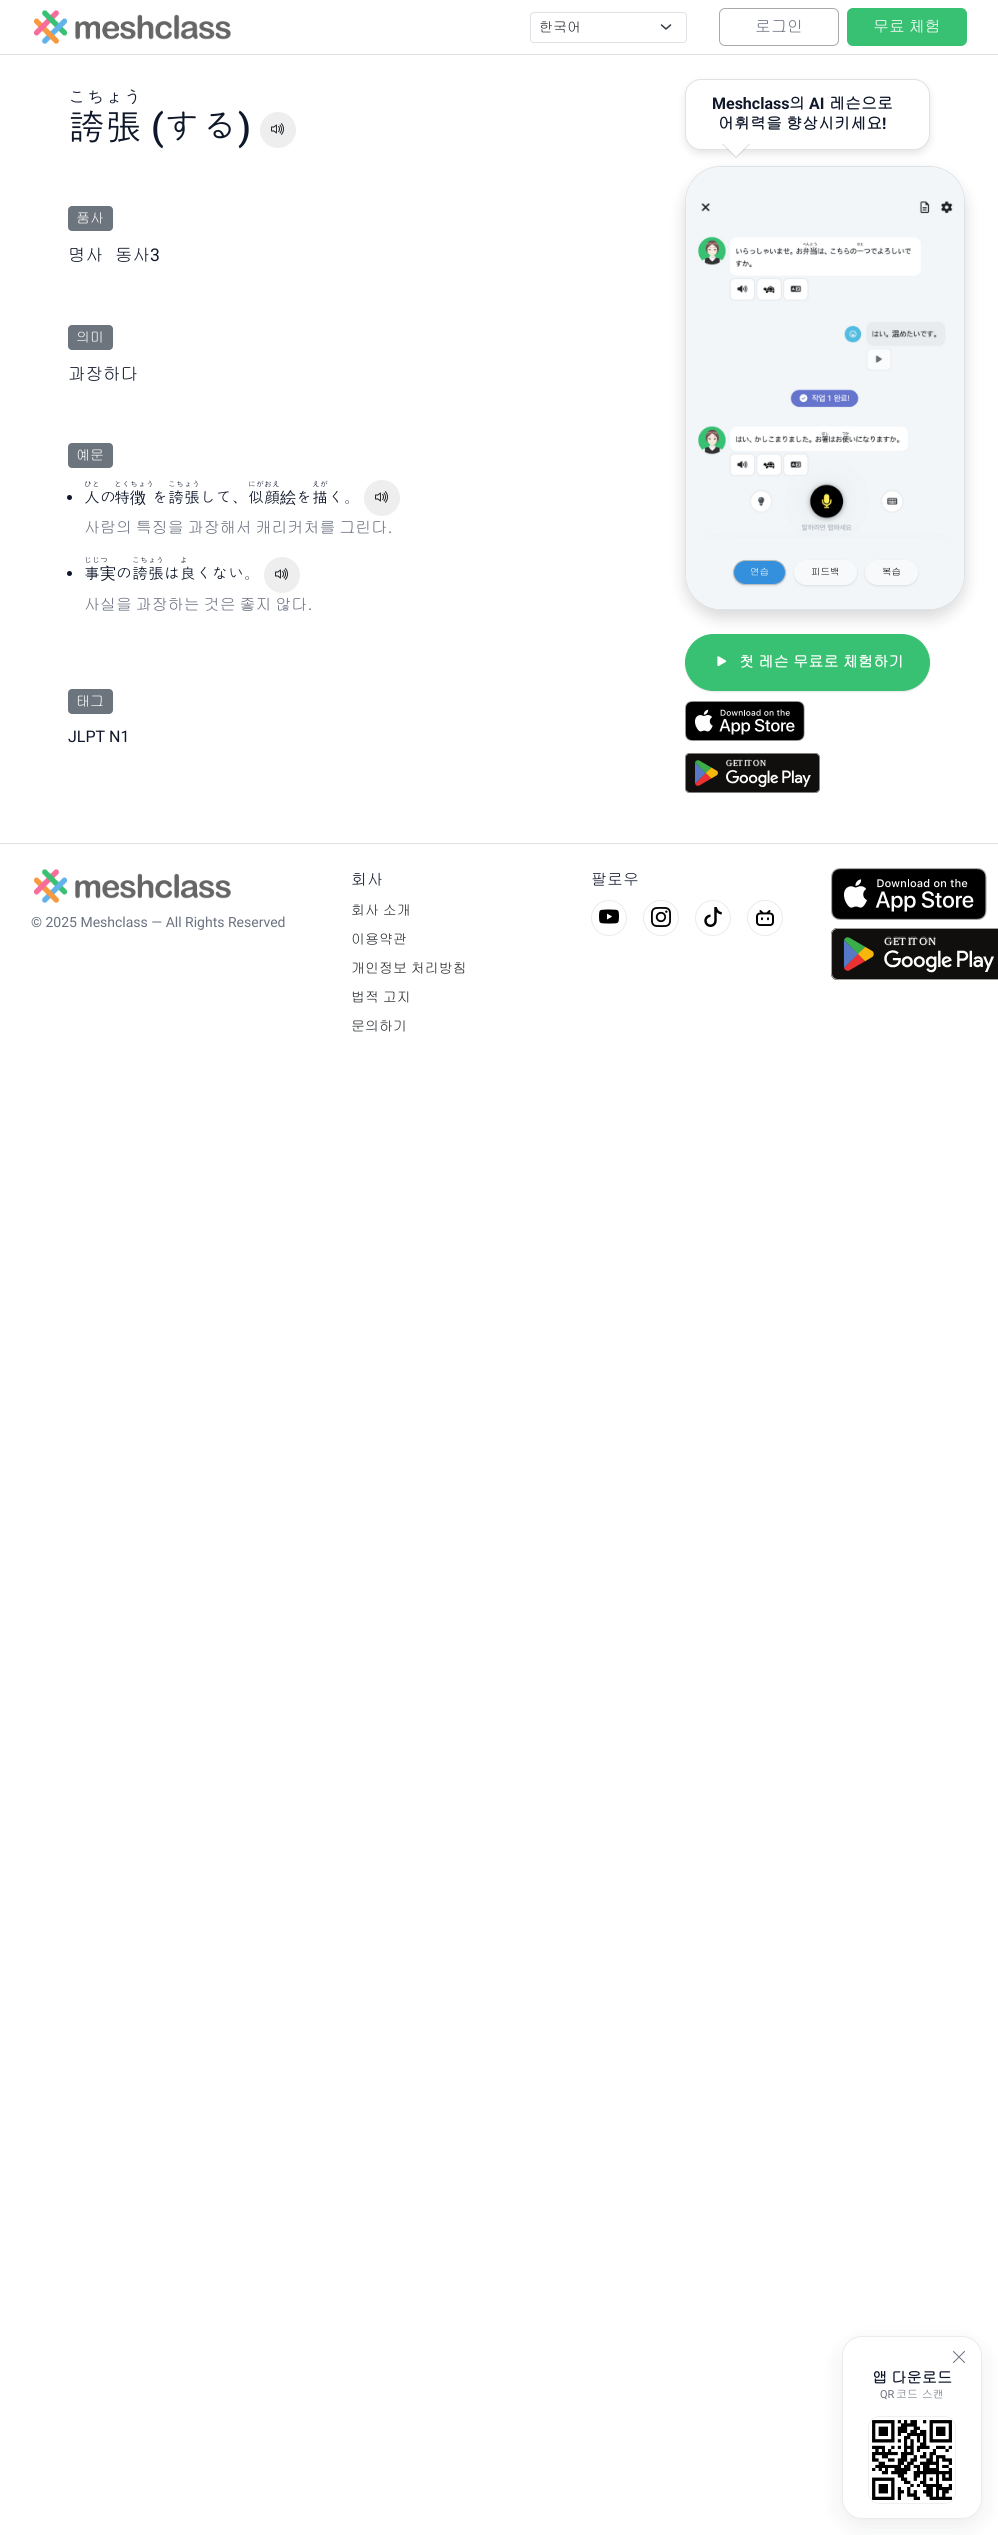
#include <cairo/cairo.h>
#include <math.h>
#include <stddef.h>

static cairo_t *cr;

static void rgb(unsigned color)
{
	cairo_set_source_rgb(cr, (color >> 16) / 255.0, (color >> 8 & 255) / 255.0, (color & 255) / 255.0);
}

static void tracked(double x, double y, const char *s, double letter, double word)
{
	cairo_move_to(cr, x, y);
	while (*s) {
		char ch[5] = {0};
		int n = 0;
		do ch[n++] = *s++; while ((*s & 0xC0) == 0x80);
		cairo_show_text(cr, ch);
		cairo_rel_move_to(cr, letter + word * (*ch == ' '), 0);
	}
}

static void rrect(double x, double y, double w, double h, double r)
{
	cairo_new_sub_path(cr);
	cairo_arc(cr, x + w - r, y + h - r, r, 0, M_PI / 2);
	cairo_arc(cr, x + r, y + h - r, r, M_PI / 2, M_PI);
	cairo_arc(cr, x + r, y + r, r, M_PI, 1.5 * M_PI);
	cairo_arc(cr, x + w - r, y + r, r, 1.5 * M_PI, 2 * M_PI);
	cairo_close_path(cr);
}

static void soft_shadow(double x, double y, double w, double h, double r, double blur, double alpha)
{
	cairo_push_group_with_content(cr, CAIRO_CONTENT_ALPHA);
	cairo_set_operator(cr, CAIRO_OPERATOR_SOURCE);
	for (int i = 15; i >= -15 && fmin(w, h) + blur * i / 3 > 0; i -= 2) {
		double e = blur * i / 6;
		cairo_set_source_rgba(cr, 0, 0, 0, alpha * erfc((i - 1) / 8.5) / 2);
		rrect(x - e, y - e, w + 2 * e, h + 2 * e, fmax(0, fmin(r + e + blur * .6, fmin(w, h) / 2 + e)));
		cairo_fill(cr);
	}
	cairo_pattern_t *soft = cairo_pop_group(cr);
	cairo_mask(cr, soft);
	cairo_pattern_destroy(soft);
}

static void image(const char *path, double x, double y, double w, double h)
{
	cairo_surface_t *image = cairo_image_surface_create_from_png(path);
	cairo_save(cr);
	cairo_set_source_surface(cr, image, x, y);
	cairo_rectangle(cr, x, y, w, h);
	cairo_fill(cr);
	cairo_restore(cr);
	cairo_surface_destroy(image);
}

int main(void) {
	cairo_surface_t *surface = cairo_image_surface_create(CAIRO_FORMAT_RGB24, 998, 2535);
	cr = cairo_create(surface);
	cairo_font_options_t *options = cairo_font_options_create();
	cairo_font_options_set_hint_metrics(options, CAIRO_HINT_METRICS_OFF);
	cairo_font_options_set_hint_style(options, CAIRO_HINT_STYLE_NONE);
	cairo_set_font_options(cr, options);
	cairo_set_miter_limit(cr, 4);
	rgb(0xffffff);
	cairo_paint(cr);
	rgb(0xdee2e6);
	cairo_rectangle(cr, 0, 54, 998, 1);
	cairo_fill(cr);
	image("img/1.png", 34, 10, 197, 34);
	cairo_new_path(cr);
	cairo_move_to(cr, 661.5, 25);
	cairo_line_to(cr, 666, 29);
	cairo_line_to(cr, 670.5, 25);
	rgb(0x343a40);
	cairo_set_line_width(cr, 1.5);
	cairo_set_line_cap(cr, CAIRO_LINE_CAP_ROUND);
	cairo_set_line_join(cr, CAIRO_LINE_JOIN_ROUND);
	cairo_stroke(cr);
	rrect(530.5, 12.5, 156, 30, 3.5);
	rgb(0xdee2e6);
	cairo_set_line_width(cr, 1);
	cairo_set_line_cap(cr, CAIRO_LINE_CAP_BUTT);
	cairo_set_line_join(cr, CAIRO_LINE_JOIN_MITER);
	cairo_stroke(cr);
	rrect(719.5, 8.5, 119, 37, 5.5);
	rgb(0xaaaaaa);
	cairo_stroke(cr);
	rgb(0x38c172);
	rrect(847.5, 8.5, 119, 37, 5.5);
	cairo_fill_preserve(cr);
	cairo_stroke(cr);
	rgb(0xeeeeee);
	cairo_arc(cr, 278, 130, 18, 0, 2 * M_PI);
	cairo_fill(cr);
	image("img/2.png", 271, 123, 13, 12);
	rgb(0x6c757d);
	rrect(68, 206, 45, 25, 4);
	cairo_fill(cr);
	rrect(68, 325, 45, 25, 4);
	cairo_fill(cr);
	rrect(68, 443, 45, 25, 4);
	cairo_fill(cr);
	rgb(0x0f172a);
	cairo_arc(cr, 69.5, 497.5, 2.5, 0, 2 * M_PI);
	cairo_fill(cr);
	rgb(0xeeeeee);
	cairo_arc(cr, 382, 498, 18, 0, 2 * M_PI);
	cairo_fill(cr);
	image("img/2.png", 375, 491, 13, 12);
	rgb(0x0f172a);
	cairo_arc(cr, 69.5, 573.5, 2.5, 0, 2 * M_PI);
	cairo_fill(cr);
	rgb(0xeeeeee);
	cairo_arc(cr, 282, 575, 18, 0, 2 * M_PI);
	cairo_fill(cr);
	image("img/2.png", 275, 568, 13, 12);
	rgb(0x6c757d);
	rrect(68, 689, 45, 25, 4);
	cairo_fill(cr);
	rgb(0x000000);
	soft_shadow(685, 83, 245, 71, 16, 4, 0.1);
	rgb(0xffffff);
	rrect(685, 79, 245, 71, 16);
	cairo_fill(cr);
	rrect(685.5, 79.5, 244, 70, 15.5);
	cairo_set_source_rgba(cr, 0, 0, 0, 0.12);
	cairo_stroke(cr);
	cairo_set_source_rgba(cr, 0, 0, 0, 0.18);
	cairo_new_path(cr);
	cairo_move_to(cr, 722, 144);
	cairo_line_to(cr, 750, 144);
	cairo_line_to(cr, 736, 158);
	cairo_close_path(cr);
	cairo_fill(cr);
	rgb(0xffffff);
	cairo_new_path(cr);
	cairo_move_to(cr, 722, 143);
	cairo_line_to(cr, 750, 143);
	cairo_line_to(cr, 736, 157);
	cairo_close_path(cr);
	cairo_fill(cr);
	rgb(0x000000);
	soft_shadow(685, 635, 245, 57, 28.5, 0.5, 0.04);
	soft_shadow(685, 635, 245, 57, 28.5, 1, 0.06);
	rgb(0x38c172);
	rrect(685.5, 634.5, 244, 56, 28);
	cairo_fill_preserve(cr);
	cairo_stroke(cr);
	rgb(0x000000);
	soft_shadow(685, 174, 280, 444, 36, 8, 0.15);
	rgb(0xffffff);
	rrect(685.5, 166.5, 279, 443, 35.5);
	cairo_fill_preserve(cr);
	rgb(0xdee2e6);
	cairo_stroke(cr);
	image("img/3.png", 686, 167, 278, 442);
	rgb(0x000000);
	soft_shadow(733, 561, 53, 25, 12.5, 1, 0.1);
	rgb(0x3490dc);
	rrect(733.5, 560.5, 52, 24, 12);
	cairo_fill_preserve(cr);
	rgb(0xbabbbc);
	cairo_stroke(cr);
	rgb(0x000000);
	soft_shadow(794, 561, 63, 25, 12.5, 1, 0.1);
	rgb(0xf8f9fa);
	rrect(794.5, 560.5, 62, 24, 12);
	cairo_fill_preserve(cr);
	cairo_stroke(cr);
	rgb(0x000000);
	soft_shadow(865, 561, 53, 25, 12.5, 1, 0.1);
	rgb(0xf8f9fa);
	rrect(865.5, 560.5, 52, 24, 12);
	cairo_fill_preserve(cr);
	cairo_stroke(cr);
	image("img/4.png", 717, 656, 10, 11);
	image("img/5.png", 685, 701, 120, 40);
	image("img/6.png", 685, 753, 135, 40);
	rgb(0xdee2e6);
	cairo_rectangle(cr, 0, 843, 998, 1);
	cairo_fill(cr);
	cairo_arc(cr, 609, 918, 17.5, 0, 2 * M_PI);
	rgb(0xebebeb);
	cairo_stroke(cr);
	image("img/7.png", 599, 909, 20, 15);
	cairo_arc(cr, 661, 918, 17.5, 0, 2 * M_PI);
	cairo_stroke(cr);
	image("img/8.png", 651, 907, 20, 20);
	cairo_arc(cr, 713, 918, 17.5, 0, 2 * M_PI);
	cairo_stroke(cr);
	image("img/9.png", 704, 907, 18, 20);
	cairo_arc(cr, 765, 918, 17.5, 0, 2 * M_PI);
	cairo_stroke(cr);
	image("img/10.png", 756, 910, 18, 16);
	image("img/11.png", 831, 868, 156, 52);
	image("img/12.png", 831, 928, 167, 52);
	image("img/13.png", 34, 869, 197, 34);
	rgb(0x101828);
	soft_shadow(842, 2344, 140, 183, 20, 12, 0.08);
	rgb(0xffffff);
	rrect(842, 2336, 140, 183, 20);
	cairo_fill(cr);
	rrect(842.5, 2336.5, 139, 182, 19.5);
	cairo_set_source_rgba(cr, 0, 0, 0, 0.08);
	cairo_stroke(cr);
	image("img/14.png", 953, 2351, 12, 12);
	rrect(868.5, 2416.5, 87, 87, 11.5);
	rgb(0xf0f0f0);
	cairo_stroke(cr);
	image("img/15.png", 872, 2418, 80, 85);
	cairo_select_font_face(cr, "Gulim", CAIRO_FONT_SLANT_NORMAL, CAIRO_FONT_WEIGHT_NORMAL);
	cairo_set_font_size(cr, 14);
	rgb(0x212529);
	cairo_move_to(cr, 539, 32);
	cairo_show_text(cr, "한국어");
	cairo_set_font_size(cr, 16);
	rgb(0x6b7280);
	cairo_move_to(cr, 755, 32);
	cairo_show_text(cr, "로그인");
	rgb(0xffffff);
	tracked(873, 32, "무료 체험", 0, -1.5);
	cairo_set_font_size(cr, 18.5);
	rgb(0x0f172a);
	cairo_move_to(cr, 68, 104);
	cairo_show_text(cr, "こちょう");
	cairo_set_font_size(cr, 37);
	cairo_move_to(cr, 68, 140);
	cairo_show_text(cr, "誇張");
	cairo_select_font_face(cr, "Roboto Medium", CAIRO_FONT_SLANT_NORMAL, CAIRO_FONT_WEIGHT_NORMAL);
	cairo_move_to(cr, 151, 140);
	cairo_show_text(cr, "(");
	cairo_select_font_face(cr, "Gulim", CAIRO_FONT_SLANT_NORMAL, CAIRO_FONT_WEIGHT_NORMAL);
	cairo_move_to(cr, 164, 140);
	cairo_show_text(cr, "する");
	cairo_select_font_face(cr, "Roboto Medium", CAIRO_FONT_SLANT_NORMAL, CAIRO_FONT_WEIGHT_NORMAL);
	cairo_move_to(cr, 238, 140);
	cairo_show_text(cr, ")");
	cairo_select_font_face(cr, "Gulim", CAIRO_FONT_SLANT_NORMAL, CAIRO_FONT_WEIGHT_NORMAL);
	cairo_set_font_size(cr, 14);
	rgb(0xffffff);
	cairo_move_to(cr, 76, 223);
	cairo_show_text(cr, "품사");
	cairo_set_font_size(cr, 17.5);
	rgb(0x0f172a);
	cairo_move_to(cr, 68, 261);
	cairo_show_text(cr, "명사");
	cairo_move_to(cr, 115, 261);
	cairo_show_text(cr, "동사");
	cairo_select_font_face(cr, "Roboto", CAIRO_FONT_SLANT_NORMAL, CAIRO_FONT_WEIGHT_NORMAL);
	cairo_move_to(cr, 150, 261);
	cairo_show_text(cr, "3");
	cairo_select_font_face(cr, "Gulim", CAIRO_FONT_SLANT_NORMAL, CAIRO_FONT_WEIGHT_NORMAL);
	cairo_set_font_size(cr, 14);
	rgb(0xffffff);
	cairo_move_to(cr, 76, 342);
	cairo_show_text(cr, "의미");
	cairo_set_font_size(cr, 17.5);
	rgb(0x0f172a);
	cairo_move_to(cr, 68, 380);
	cairo_show_text(cr, "과장하다");
	cairo_set_font_size(cr, 14);
	rgb(0xffffff);
	cairo_move_to(cr, 76, 460);
	cairo_show_text(cr, "예문");
	cairo_set_font_size(cr, 8);
	rgb(0x0f172a);
	cairo_move_to(cr, 84, 487);
	cairo_show_text(cr, "ひと");
	cairo_set_font_size(cr, 16);
	cairo_move_to(cr, 84, 503);
	cairo_show_text(cr, "人の");
	cairo_set_font_size(cr, 8);
	cairo_move_to(cr, 114, 487);
	cairo_show_text(cr, "とくちょう");
	cairo_set_font_size(cr, 16);
	cairo_move_to(cr, 114, 503);
	cairo_show_text(cr, "特");
	cairo_select_font_face(cr, "WenQuanYi Zen Hei Medium", CAIRO_FONT_SLANT_NORMAL, CAIRO_FONT_WEIGHT_NORMAL);
	cairo_move_to(cr, 130, 503);
	cairo_show_text(cr, "徴");
	cairo_select_font_face(cr, "Gulim", CAIRO_FONT_SLANT_NORMAL, CAIRO_FONT_WEIGHT_NORMAL);
	cairo_set_font_size(cr, 8);
	cairo_move_to(cr, 168, 487);
	cairo_show_text(cr, "こちょう");
	cairo_move_to(cr, 248, 487);
	cairo_show_text(cr, "にがおえ");
	cairo_select_font_face(cr, "WenQuanYi Zen Hei Medium", CAIRO_FONT_SLANT_NORMAL, CAIRO_FONT_WEIGHT_NORMAL);
	cairo_set_font_size(cr, 16);
	cairo_move_to(cr, 280, 503);
	cairo_show_text(cr, "絵");
	cairo_select_font_face(cr, "Gulim", CAIRO_FONT_SLANT_NORMAL, CAIRO_FONT_WEIGHT_NORMAL);
	cairo_set_font_size(cr, 8);
	cairo_move_to(cr, 312, 487);
	cairo_show_text(cr, "えが");
	cairo_set_font_size(cr, 16);
	cairo_move_to(cr, 152, 503);
	cairo_show_text(cr, "を誇張して、似顔");
	cairo_move_to(cr, 296, 503);
	cairo_show_text(cr, "を描く。");
	rgb(0x6b7280);
	tracked(84, 533, "사람의 특징을 과장해서 캐리커처를 그린다", 0, -1.5);
	cairo_select_font_face(cr, "Roboto", CAIRO_FONT_SLANT_NORMAL, CAIRO_FONT_WEIGHT_NORMAL);
	cairo_move_to(cr, 388, 533);
	cairo_show_text(cr, ".");
	cairo_select_font_face(cr, "Gulim", CAIRO_FONT_SLANT_NORMAL, CAIRO_FONT_WEIGHT_NORMAL);
	cairo_set_font_size(cr, 8);
	rgb(0x0f172a);
	cairo_move_to(cr, 84, 563);
	cairo_show_text(cr, "じじつ");
	cairo_set_font_size(cr, 16);
	cairo_move_to(cr, 84, 579);
	cairo_show_text(cr, "事");
	cairo_select_font_face(cr, "WenQuanYi Zen Hei Medium", CAIRO_FONT_SLANT_NORMAL, CAIRO_FONT_WEIGHT_NORMAL);
	cairo_move_to(cr, 100, 579);
	cairo_show_text(cr, "実");
	cairo_select_font_face(cr, "Gulim", CAIRO_FONT_SLANT_NORMAL, CAIRO_FONT_WEIGHT_NORMAL);
	cairo_set_font_size(cr, 8);
	cairo_move_to(cr, 132, 563);
	cairo_show_text(cr, "こちょう");
	cairo_move_to(cr, 180, 563);
	cairo_show_text(cr, "よ");
	cairo_set_font_size(cr, 16);
	cairo_move_to(cr, 116, 579);
	cairo_show_text(cr, "の誇張は良くない。");
	rgb(0x6b7280);
	tracked(84, 610, "사실을 과장하는 것은 좋지 않다", 0, -1.5);
	cairo_select_font_face(cr, "Roboto", CAIRO_FONT_SLANT_NORMAL, CAIRO_FONT_WEIGHT_NORMAL);
	cairo_move_to(cr, 308, 610);
	cairo_show_text(cr, ".");
	cairo_select_font_face(cr, "Gulim", CAIRO_FONT_SLANT_NORMAL, CAIRO_FONT_WEIGHT_NORMAL);
	cairo_set_font_size(cr, 14);
	rgb(0xffffff);
	cairo_move_to(cr, 76, 706);
	cairo_show_text(cr, "태그");
	cairo_select_font_face(cr, "Roboto", CAIRO_FONT_SLANT_NORMAL, CAIRO_FONT_WEIGHT_NORMAL);
	cairo_set_font_size(cr, 16);
	rgb(0x0f172a);
	cairo_move_to(cr, 68, 742);
	cairo_show_text(cr, "JLPT N1");
	cairo_select_font_face(cr, "Roboto", CAIRO_FONT_SLANT_NORMAL, CAIRO_FONT_WEIGHT_BOLD);
	cairo_move_to(cr, 712, 109);
	cairo_show_text(cr, "Meshclass");
	cairo_select_font_face(cr, "Gulim", CAIRO_FONT_SLANT_NORMAL, CAIRO_FONT_WEIGHT_BOLD);
	cairo_move_to(cr, 789, 109);
	cairo_show_text(cr, "의");
	cairo_select_font_face(cr, "Roboto", CAIRO_FONT_SLANT_NORMAL, CAIRO_FONT_WEIGHT_BOLD);
	cairo_move_to(cr, 809, 109);
	cairo_show_text(cr, "AI");
	cairo_select_font_face(cr, "Gulim", CAIRO_FONT_SLANT_NORMAL, CAIRO_FONT_WEIGHT_BOLD);
	cairo_move_to(cr, 829, 109);
	cairo_show_text(cr, "레슨으로");
	tracked(718, 129, "어휘력을 향상시키세요", 0, -1);
	cairo_select_font_face(cr, "Roboto", CAIRO_FONT_SLANT_NORMAL, CAIRO_FONT_WEIGHT_BOLD);
	cairo_move_to(cr, 882, 129);
	cairo_show_text(cr, "!");
	cairo_select_font_face(cr, "Gulim", CAIRO_FONT_SLANT_NORMAL, CAIRO_FONT_WEIGHT_NORMAL);
	cairo_set_font_size(cr, 9.5);
	rgb(0xffffff);
	cairo_move_to(cr, 750, 575);
	cairo_show_text(cr, "연습");
	rgb(0x000000);
	cairo_move_to(cr, 811, 575);
	cairo_show_text(cr, "피드백");
	cairo_move_to(cr, 882, 575);
	cairo_show_text(cr, "복습");
	cairo_select_font_face(cr, "Gulim", CAIRO_FONT_SLANT_NORMAL, CAIRO_FONT_WEIGHT_BOLD);
	cairo_set_font_size(cr, 15.25);
	rgb(0xffffff);
	tracked(739, 667, "첫 레슨 무료로 체험하기", 0, -1);
	cairo_select_font_face(cr, "Gulim", CAIRO_FONT_SLANT_NORMAL, CAIRO_FONT_WEIGHT_NORMAL);
	cairo_set_font_size(cr, 16);
	rgb(0x0f172a);
	cairo_move_to(cr, 351, 885);
	cairo_show_text(cr, "회사");
	cairo_set_font_size(cr, 14);
	rgb(0x212529);
	tracked(351, 915, "회사 소개", 0, -1);
	cairo_move_to(cr, 351, 944);
	cairo_show_text(cr, "이용약관");
	tracked(351, 973, "개인정보 처리방침", 0, -1);
	tracked(351, 1002, "법적 고지", 0, -1);
	cairo_move_to(cr, 351, 1031);
	cairo_show_text(cr, "문의하기");
	cairo_set_font_size(cr, 16);
	rgb(0x0f172a);
	cairo_move_to(cr, 591, 885);
	cairo_show_text(cr, "팔로우");
	cairo_select_font_face(cr, "Roboto", CAIRO_FONT_SLANT_NORMAL, CAIRO_FONT_WEIGHT_NORMAL);
	cairo_set_font_size(cr, 14);
	rgb(0x6b7280);
	cairo_move_to(cr, 31, 927);
	cairo_show_text(cr, "© 2025 Meshclass — All Rights Reserved");
	cairo_select_font_face(cr, "Gulim", CAIRO_FONT_SLANT_NORMAL, CAIRO_FONT_WEIGHT_BOLD);
	cairo_set_font_size(cr, 15.25);
	rgb(0x0f172a);
	tracked(872, 2383, "앱 다운로드", 0, -1);
	cairo_select_font_face(cr, "Roboto", CAIRO_FONT_SLANT_NORMAL, CAIRO_FONT_WEIGHT_NORMAL);
	cairo_set_font_size(cr, 11);
	rgb(0x6b7280);
	cairo_move_to(cr, 880, 2398);
	cairo_show_text(cr, "QR");
	cairo_select_font_face(cr, "Gulim", CAIRO_FONT_SLANT_NORMAL, CAIRO_FONT_WEIGHT_NORMAL);
	cairo_move_to(cr, 896, 2398);
	cairo_show_text(cr, "코드 스캔");
	cairo_surface_write_to_png(surface, "page.png");
	cairo_font_options_destroy(options);
	cairo_destroy(cr);
	cairo_surface_destroy(surface);
	return 0;
}
